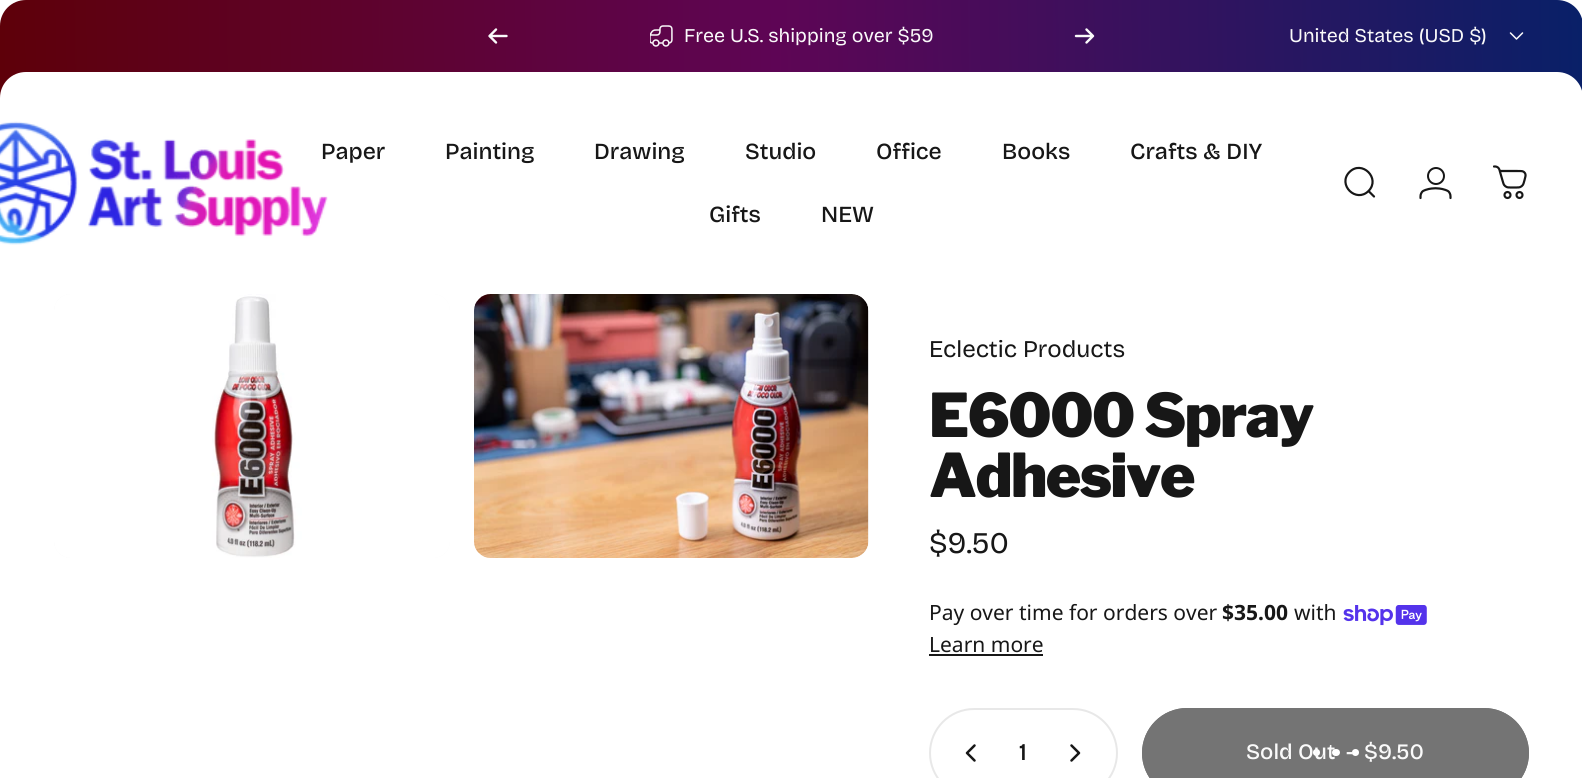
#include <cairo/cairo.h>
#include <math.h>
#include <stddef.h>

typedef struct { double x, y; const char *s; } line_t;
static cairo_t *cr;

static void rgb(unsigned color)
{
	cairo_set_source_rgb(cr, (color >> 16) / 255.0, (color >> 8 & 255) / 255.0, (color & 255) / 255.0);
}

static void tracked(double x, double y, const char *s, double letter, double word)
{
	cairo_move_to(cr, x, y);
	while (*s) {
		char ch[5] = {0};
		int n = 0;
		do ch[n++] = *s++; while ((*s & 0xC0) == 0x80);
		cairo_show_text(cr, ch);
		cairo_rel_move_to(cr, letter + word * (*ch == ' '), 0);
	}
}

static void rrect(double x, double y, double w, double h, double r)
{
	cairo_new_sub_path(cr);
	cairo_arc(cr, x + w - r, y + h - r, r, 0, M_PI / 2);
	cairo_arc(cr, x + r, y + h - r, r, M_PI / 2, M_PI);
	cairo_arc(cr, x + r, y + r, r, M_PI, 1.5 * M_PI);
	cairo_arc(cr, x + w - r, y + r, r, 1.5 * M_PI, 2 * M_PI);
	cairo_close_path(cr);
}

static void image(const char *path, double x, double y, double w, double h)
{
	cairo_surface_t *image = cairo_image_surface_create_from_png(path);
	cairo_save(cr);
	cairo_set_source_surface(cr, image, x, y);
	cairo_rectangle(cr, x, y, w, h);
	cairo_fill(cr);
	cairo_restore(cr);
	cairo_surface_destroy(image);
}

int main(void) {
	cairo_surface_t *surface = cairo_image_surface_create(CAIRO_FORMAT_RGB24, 1582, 778);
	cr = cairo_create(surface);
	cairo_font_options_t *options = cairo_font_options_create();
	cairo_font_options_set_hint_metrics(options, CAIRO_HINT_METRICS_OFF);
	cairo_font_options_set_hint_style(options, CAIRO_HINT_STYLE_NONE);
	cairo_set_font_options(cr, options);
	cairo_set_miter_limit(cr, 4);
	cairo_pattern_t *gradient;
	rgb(0xffffff);
	cairo_paint(cr);
	gradient = cairo_pattern_create_linear(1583, 35, -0.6, 63);
	cairo_pattern_add_color_stop_rgba(gradient, 0, 0.035, 0.125, 0.408, 1);
	cairo_pattern_add_color_stop_rgba(gradient, 0.51, 0.369, 0.02, 0.333, 1);
	cairo_pattern_add_color_stop_rgba(gradient, 1, 0.369, 0, 0.035, 1);
	cairo_set_source(cr, gradient);
	cairo_pattern_destroy(gradient);
	cairo_new_path(cr);
	cairo_move_to(cr, 26, 0);
	cairo_line_to(cr, 1557, 0);
	cairo_curve_to(cr, 1571.5, 0, 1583, 11.5, 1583, 26);
	cairo_line_to(cr, 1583, 98);
	cairo_line_to(cr, 0, 98);
	cairo_line_to(cr, 0, 26);
	cairo_curve_to(cr, 0, 11.5, 11.5, 0, 26, 0);
	cairo_close_path(cr);
	cairo_fill(cr);
	cairo_new_path(cr);
	cairo_move_to(cr, 496, 29.5);
	cairo_line_to(cr, 489.5, 36);
	cairo_move_to(cr, 489.5, 36);
	cairo_line_to(cr, 496, 42.5);
	cairo_move_to(cr, 489.5, 36);
	cairo_line_to(cr, 506.5, 36);
	rgb(0xfafafa);
	cairo_set_line_width(cr, 2.4);
	cairo_set_line_cap(cr, CAIRO_LINE_CAP_ROUND);
	cairo_set_line_join(cr, CAIRO_LINE_JOIN_ROUND);
	cairo_stroke(cr);
	image("img/1.png", 650, 25, 23, 22);
	cairo_new_path(cr);
	cairo_move_to(cr, 1076, 36);
	cairo_line_to(cr, 1093, 36);
	cairo_move_to(cr, 1093, 36);
	cairo_line_to(cr, 1086.5, 29.5);
	cairo_move_to(cr, 1093, 36);
	cairo_line_to(cr, 1086.5, 42.5);
	cairo_stroke(cr);
	cairo_new_path(cr);
	cairo_move_to(cr, 1510.5, 33);
	cairo_line_to(cr, 1516.5, 39);
	cairo_line_to(cr, 1522.5, 33);
	cairo_set_line_width(cr, 1.5);
	cairo_stroke(cr);
	rgb(0xffffff);
	cairo_new_path(cr);
	cairo_move_to(cr, 26, 72);
	cairo_line_to(cr, 1557, 72);
	cairo_curve_to(cr, 1571.5, 72, 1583, 83.5, 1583, 98);
	cairo_line_to(cr, 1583, 294);
	cairo_line_to(cr, 0, 294);
	cairo_line_to(cr, 0, 98);
	cairo_curve_to(cr, 0, 83.5, 11.5, 72, 26, 72);
	cairo_close_path(cr);
	cairo_fill(cr);
	image("img/2.png", 0, 121, 328, 124);
	cairo_new_path(cr);
	cairo_move_to(cr, 1374, 196.5);
	cairo_line_to(cr, 1368.5, 191);
	cairo_move_to(cr, 1368.5, 191);
	cairo_curve_to(cr, 1381, 178.5, 1362, 159.5, 1349.5, 172);
	cairo_curve_to(cr, 1337, 184.5, 1356, 203.5, 1368.5, 191);
	cairo_close_path(cr);
	rgb(0x171717);
	cairo_set_line_width(cr, 2.2);
	cairo_set_line_join(cr, CAIRO_LINE_JOIN_MITER);
	cairo_stroke(cr);
	image("img/3.png", 1419, 167, 33, 33);
	image("img/4.png", 1493, 165, 34, 35);
	rgb(0xfafafa);
	rrect(54, 294, 396, 264, 17);
	cairo_fill(cr);
	image("img/5.png", 54, 294, 396, 264);
	rrect(474, 294, 395, 264, 17);
	cairo_fill(cr);
	image("img/6.png", 474, 294, 395, 264);
	image("img/7.png", 1343, 605, 84, 21);
	rgb(0x171717);
	cairo_rectangle(cr, 929, 654, 114, 2);
	cairo_fill(cr);
	rrect(930, 709, 187, 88, 44);
	rgb(0xe8e8e8);
	cairo_set_line_width(cr, 2);
	cairo_set_line_cap(cr, CAIRO_LINE_CAP_BUTT);
	cairo_stroke(cr);
	cairo_new_path(cr);
	cairo_move_to(cr, 974.5, 745.5);
	cairo_line_to(cr, 967, 753);
	cairo_line_to(cr, 974.5, 760.5);
	rgb(0x171717);
	cairo_set_line_width(cr, 2.5);
	cairo_set_line_cap(cr, CAIRO_LINE_CAP_ROUND);
	cairo_set_line_join(cr, CAIRO_LINE_JOIN_ROUND);
	cairo_stroke(cr);
	cairo_new_path(cr);
	cairo_move_to(cr, 1071.5, 745.5);
	cairo_line_to(cr, 1079, 753);
	cairo_line_to(cr, 1071.5, 760.5);
	cairo_stroke(cr);
	rgb(0x747474);
	rrect(1142, 708, 387, 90, 45);
	cairo_fill(cr);
	rgb(0xffffff);
	cairo_arc(cr, 1316.5, 752.5, 3.5, 0, 2 * M_PI);
	cairo_fill(cr);
	rrect(1332, 749, 8, 7, 3.5);
	cairo_fill(cr);
	cairo_arc(cr, 1355.5, 752.5, 3.5, 0, 2 * M_PI);
	cairo_fill(cr);
	rrect(1143.5, 709.5, 384, 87, 43.5);
	rgb(0x747474);
	cairo_set_line_width(cr, 3);
	cairo_set_line_cap(cr, CAIRO_LINE_CAP_BUTT);
	cairo_set_line_join(cr, CAIRO_LINE_JOIN_MITER);
	cairo_stroke(cr);
	cairo_select_font_face(cr, "Bricolage Grotesque", CAIRO_FONT_SLANT_NORMAL, CAIRO_FONT_WEIGHT_NORMAL);
	cairo_set_font_size(cr, 19.5);
	rgb(0xfafafa);
	cairo_move_to(cr, 684, 42);
	cairo_show_text(cr, "Free U.S. shipping over $59");
	cairo_move_to(cr, 1289, 42);
	cairo_show_text(cr, "United States (USD $)");
	cairo_select_font_face(cr, "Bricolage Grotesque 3 Medium", CAIRO_FONT_SLANT_NORMAL, CAIRO_FONT_WEIGHT_NORMAL);
	cairo_set_font_size(cr, 23);
	rgb(0x171717);
	{
		static const line_t items[] = {
			{321, 159, "Paper"},
			{445, 159, "Painting"},
			{594, 159, "Drawing"},
			{745, 159, "Studio"},
			{876, 159, "Office"},
			{1002, 159, "Books"},
			{1130, 159, "Crafts & DIY"},
			{709, 222, "Gifts"},
			{821, 222, "NEW"},
		};
		for (size_t i = 0; i < sizeof items / sizeof *items; i++) {
			cairo_move_to(cr, items[i].x, items[i].y);
			cairo_show_text(cr, items[i].s);
		}
	}
	cairo_select_font_face(cr, "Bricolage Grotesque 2", CAIRO_FONT_SLANT_NORMAL, CAIRO_FONT_WEIGHT_NORMAL);
	cairo_set_font_size(cr, 24);
	cairo_move_to(cr, 929, 357);
	cairo_show_text(cr, "Eclectic Products");
	cairo_select_font_face(cr, "Libre Franklin Black", CAIRO_FONT_SLANT_NORMAL, CAIRO_FONT_WEIGHT_NORMAL);
	cairo_set_font_size(cr, 60);
	tracked(929, 437, "E6000 Spray", -1.5, 0);
	tracked(929, 497, "Adhesive", -1.5, 0);
	cairo_select_font_face(cr, "Bricolage Grotesque 3", CAIRO_FONT_SLANT_NORMAL, CAIRO_FONT_WEIGHT_NORMAL);
	cairo_set_font_size(cr, 30);
	cairo_move_to(cr, 929, 553);
	cairo_show_text(cr, "$9.50");
	cairo_select_font_face(cr, "Noto Sans", CAIRO_FONT_SLANT_NORMAL, CAIRO_FONT_WEIGHT_NORMAL);
	cairo_set_font_size(cr, 21);
	cairo_move_to(cr, 929, 620);
	cairo_show_text(cr, "Pay over time for orders over");
	cairo_select_font_face(cr, "Noto Sans", CAIRO_FONT_SLANT_NORMAL, CAIRO_FONT_WEIGHT_BOLD);
	cairo_move_to(cr, 1222, 620);
	cairo_show_text(cr, "$35.00");
	cairo_select_font_face(cr, "Noto Sans", CAIRO_FONT_SLANT_NORMAL, CAIRO_FONT_WEIGHT_NORMAL);
	cairo_move_to(cr, 1294, 620);
	cairo_show_text(cr, "with");
	cairo_move_to(cr, 929, 652);
	cairo_show_text(cr, "Learn more");
	cairo_select_font_face(cr, "Bricolage Grotesque Medium", CAIRO_FONT_SLANT_NORMAL, CAIRO_FONT_WEIGHT_NORMAL);
	cairo_set_font_size(cr, 24);
	cairo_move_to(cr, 1019, 760);
	cairo_show_text(cr, "1");
	cairo_select_font_face(cr, "Bricolage Grotesque 2 Medium", CAIRO_FONT_SLANT_NORMAL, CAIRO_FONT_WEIGHT_NORMAL);
	cairo_set_font_size(cr, 22);
	rgb(0xfafafa);
	{
		static const line_t items[] = {
			{1246, 759, "Sold Out"},
			{1346, 759, "-"},
			{1364, 759, "$9.50"},
		};
		for (size_t i = 0; i < sizeof items / sizeof *items; i++) {
			cairo_move_to(cr, items[i].x, items[i].y);
			cairo_show_text(cr, items[i].s);
		}
	}
	cairo_surface_write_to_png(surface, "page.png");
	cairo_font_options_destroy(options);
	cairo_destroy(cr);
	cairo_surface_destroy(surface);
	return 0;
}
